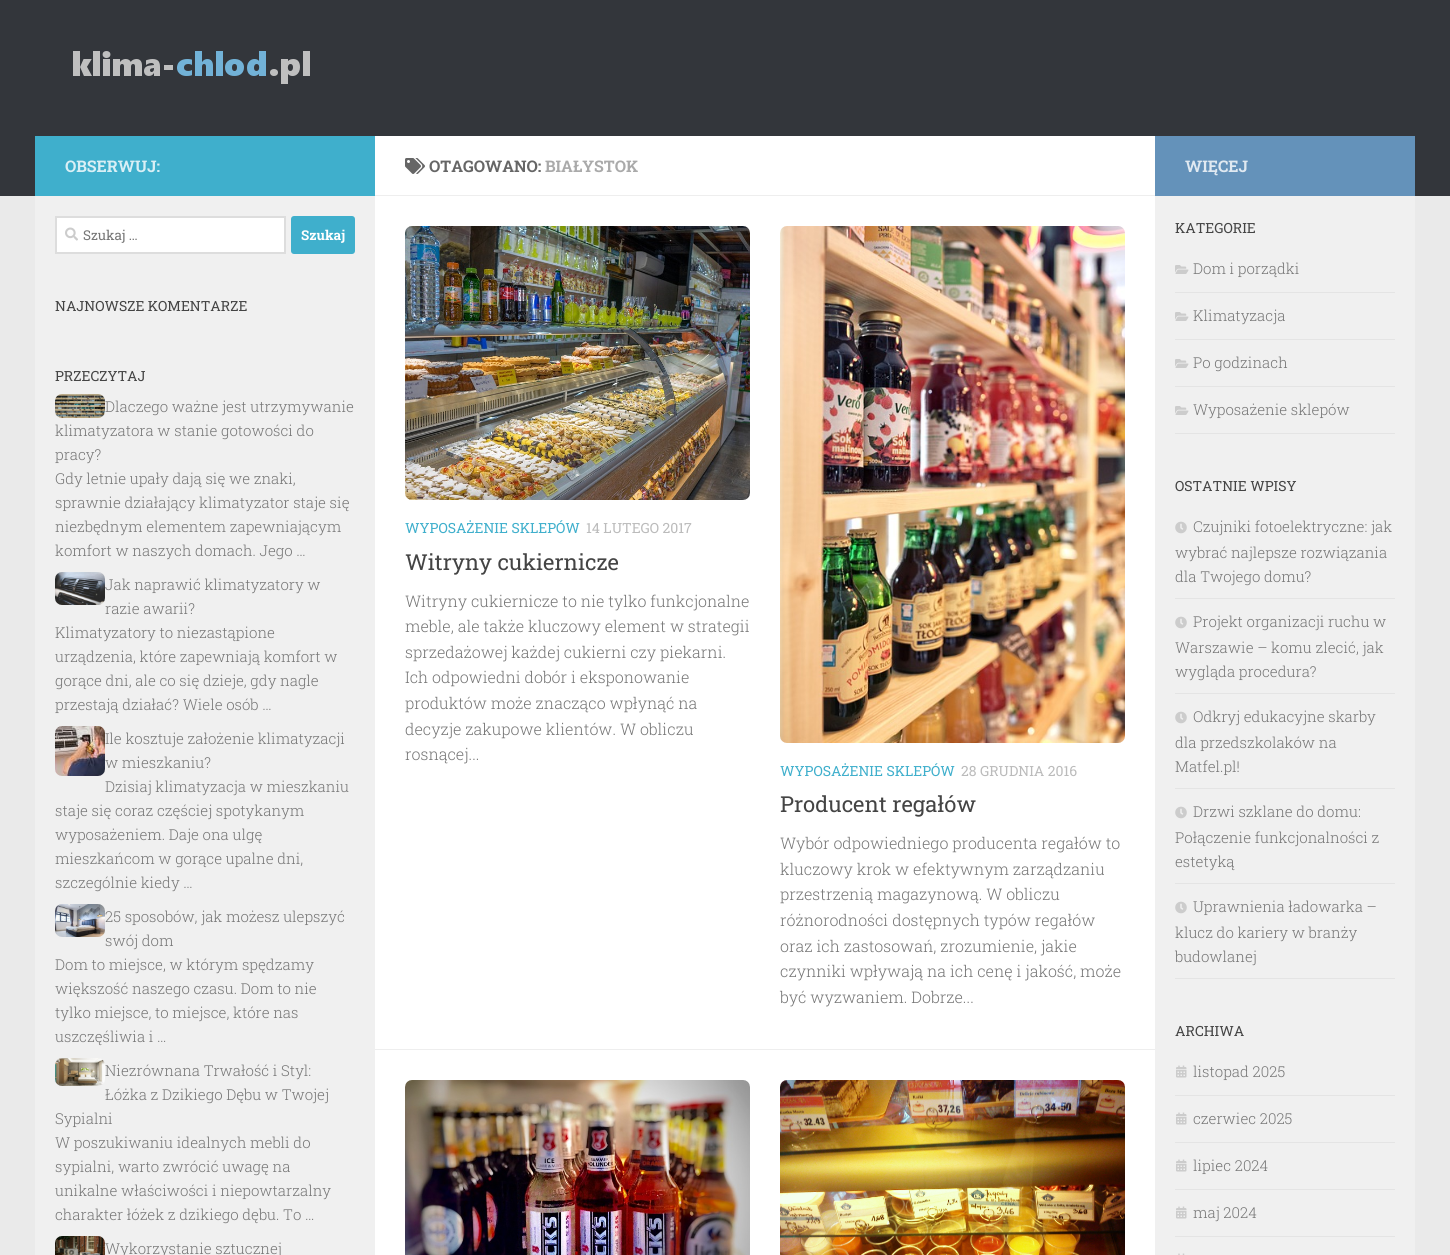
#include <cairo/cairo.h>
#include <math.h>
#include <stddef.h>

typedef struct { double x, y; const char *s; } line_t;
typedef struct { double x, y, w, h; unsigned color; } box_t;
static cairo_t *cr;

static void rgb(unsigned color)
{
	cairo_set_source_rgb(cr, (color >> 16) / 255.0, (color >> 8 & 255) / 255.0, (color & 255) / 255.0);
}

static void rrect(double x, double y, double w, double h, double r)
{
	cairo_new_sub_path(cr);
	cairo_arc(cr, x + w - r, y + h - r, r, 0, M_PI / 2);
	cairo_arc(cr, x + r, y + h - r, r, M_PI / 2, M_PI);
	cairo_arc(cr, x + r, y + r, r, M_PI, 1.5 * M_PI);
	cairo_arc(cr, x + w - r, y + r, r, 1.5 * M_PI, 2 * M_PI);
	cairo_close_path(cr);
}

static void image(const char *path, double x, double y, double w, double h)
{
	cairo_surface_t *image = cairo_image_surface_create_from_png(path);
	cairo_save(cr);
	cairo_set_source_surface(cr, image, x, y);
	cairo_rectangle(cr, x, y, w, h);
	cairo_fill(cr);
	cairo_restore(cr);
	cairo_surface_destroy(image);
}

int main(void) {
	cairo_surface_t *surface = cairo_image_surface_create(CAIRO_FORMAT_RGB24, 1450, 1255);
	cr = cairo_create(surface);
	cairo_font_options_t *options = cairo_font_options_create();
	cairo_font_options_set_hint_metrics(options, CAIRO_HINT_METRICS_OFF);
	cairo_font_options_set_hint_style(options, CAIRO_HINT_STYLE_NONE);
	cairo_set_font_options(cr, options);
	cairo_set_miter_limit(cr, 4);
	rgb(0xeaeaea);
	cairo_paint(cr);
	rgb(0x33363b);
	cairo_rectangle(cr, 0, 0, 1450, 196);
	cairo_fill(cr);
	image("img/1.png", 73, 51, 237, 33);
	{
		static const box_t items[] = {
			{375, 136, 780, 1119, 0xffffff},
			{35, 136, 340, 60, 0x3fafcc},
			{35, 196, 340, 1059, 0xf0f0f0},
		};
		for (size_t i = 0; i < sizeof items / sizeof *items; i++) {
			rgb(items[i].color);
			cairo_rectangle(cr, items[i].x, items[i].y, items[i].w, items[i].h);
			cairo_fill(cr);
		}
	}
	rgb(0xffffff);
	cairo_rectangle(cr, 56, 217, 229, 36);
	cairo_fill_preserve(cr);
	rgb(0xdddddd);
	cairo_stroke(cr);
	image("img/2.png", 65, 227, 13, 14);
	rgb(0x3fafcc);
	rrect(291, 216, 64, 38, 3);
	cairo_fill(cr);
	image("img/3.png", 55, 394, 50, 24);
	image("img/4.png", 55, 572, 50, 33);
	image("img/5.png", 55, 726, 50, 50);
	image("img/6.png", 55, 904, 50, 33);
	image("img/7.png", 55, 1058, 50, 28);
	image("img/8.png", 55, 1236, 50, 19);
	rgb(0xeeeeee);
	cairo_rectangle(cr, 375, 195, 780, 1);
	cairo_fill(cr);
	image("img/9.png", 405, 158, 20, 16);
	cairo_rectangle(cr, 375, 1049, 780, 1);
	cairo_fill(cr);
	image("img/10.png", 405, 226, 345, 274);
	image("img/11.png", 780, 226, 345, 517);
	image("img/12.png", 405, 1080, 345, 175);
	image("img/13.png", 780, 1080, 345, 175);
	{
		static const box_t items[] = {
			{1155, 136, 260, 60, 0x6492ba},
			{1155, 196, 260, 1059, 0xf0f0f0},
			{1175, 292, 220, 1, 0xe4e4e4},
		};
		for (size_t i = 0; i < sizeof items / sizeof *items; i++) {
			rgb(items[i].color);
			cairo_rectangle(cr, items[i].x, items[i].y, items[i].w, items[i].h);
			cairo_fill(cr);
		}
	}
	image("img/14.png", 1175, 265, 14, 9);
	cairo_rectangle(cr, 1175, 339, 220, 1);
	cairo_fill(cr);
	image("img/14.png", 1175, 312, 14, 9);
	cairo_rectangle(cr, 1175, 386, 220, 1);
	cairo_fill(cr);
	image("img/14.png", 1175, 359, 14, 9);
	cairo_rectangle(cr, 1175, 433, 220, 1);
	cairo_fill(cr);
	image("img/14.png", 1175, 406, 14, 9);
	cairo_rectangle(cr, 1175, 598, 220, 1);
	cairo_fill(cr);
	image("img/15.png", 1175, 521, 12, 13);
	cairo_rectangle(cr, 1175, 693, 220, 1);
	cairo_fill(cr);
	image("img/15.png", 1175, 616, 12, 13);
	cairo_rectangle(cr, 1175, 788, 220, 1);
	cairo_fill(cr);
	image("img/15.png", 1175, 711, 12, 13);
	cairo_rectangle(cr, 1175, 883, 220, 1);
	cairo_fill(cr);
	image("img/15.png", 1175, 806, 12, 13);
	cairo_rectangle(cr, 1175, 978, 220, 1);
	cairo_fill(cr);
	image("img/15.png", 1175, 901, 12, 13);
	cairo_rectangle(cr, 1175, 1095, 220, 1);
	cairo_fill(cr);
	image("img/16.png", 1176, 1065, 11, 13);
	cairo_rectangle(cr, 1175, 1142, 220, 1);
	cairo_fill(cr);
	image("img/16.png", 1176, 1112, 11, 13);
	cairo_rectangle(cr, 1175, 1189, 220, 1);
	cairo_fill(cr);
	image("img/16.png", 1176, 1159, 11, 13);
	cairo_rectangle(cr, 1175, 1236, 220, 1);
	cairo_fill(cr);
	image("img/16.png", 1176, 1206, 11, 13);
	image("img/17.png", 1178, 1253, 7, 2);
	cairo_select_font_face(cr, "Roboto Slab", CAIRO_FONT_SLANT_NORMAL, CAIRO_FONT_WEIGHT_BOLD);
	cairo_set_font_size(cr, 16);
	rgb(0xd9eff5);
	cairo_move_to(cr, 65, 172);
	cairo_show_text(cr, "OBSERWUJ:");
	cairo_select_font_face(cr, "Roboto Slab", CAIRO_FONT_SLANT_NORMAL, CAIRO_FONT_WEIGHT_NORMAL);
	cairo_set_font_size(cr, 13.5);
	rgb(0x767676);
	cairo_move_to(cr, 83, 240);
	cairo_show_text(cr, "Szukaj …");
	cairo_select_font_face(cr, "Roboto Slab", CAIRO_FONT_SLANT_NORMAL, CAIRO_FONT_WEIGHT_BOLD);
	rgb(0xffffff);
	cairo_move_to(cr, 301, 240);
	cairo_show_text(cr, "Szukaj");
	cairo_select_font_face(cr, "Roboto Slab", CAIRO_FONT_SLANT_NORMAL, CAIRO_FONT_WEIGHT_NORMAL);
	cairo_set_font_size(cr, 14);
	rgb(0x444444);
	cairo_move_to(cr, 55, 311);
	cairo_show_text(cr, "NAJNOWSZE KOMENTARZE");
	cairo_move_to(cr, 55, 381);
	cairo_show_text(cr, "PRZECZYTAJ");
	cairo_select_font_face(cr, "Roboto Slab Light", CAIRO_FONT_SLANT_NORMAL, CAIRO_FONT_WEIGHT_NORMAL);
	cairo_set_font_size(cr, 15);
	rgb(0x767676);
	{
		static const line_t items[] = {
			{105, 412, "Dlaczego ważne jest utrzymywanie"},
			{55, 436, "klimatyzatora w stanie gotowości do"},
			{55, 460, "pracy?"},
			{55, 484, "Gdy letnie upały dają się we znaki,"},
			{55, 508, "sprawnie działający klimatyzator staje się"},
			{55, 532, "niezbędnym elementem zapewniającym"},
			{55, 556, "komfort w naszych domach. Jego …"},
			{105, 590, "Jak naprawić klimatyzatory w"},
			{105, 614, "razie awarii?"},
			{55, 638, "Klimatyzatory to niezastąpione"},
			{55, 662, "urządzenia, które zapewniają komfort w"},
			{55, 686, "gorące dni, ale co się dzieje, gdy nagle"},
			{55, 710, "przestają działać? Wiele osób …"},
			{105, 744, "Ile kosztuje założenie klimatyzacji"},
			{105, 768, "w mieszkaniu?"},
			{105, 792, "Dzisiaj klimatyzacja w mieszkaniu"},
			{55, 816, "staje się coraz częściej spotykanym"},
			{55, 840, "wyposażeniem. Daje ona ulgę"},
			{55, 864, "mieszkańcom w gorące upalne dni,"},
			{55, 888, "szczególnie kiedy …"},
			{105, 922, "25 sposobów, jak możesz ulepszyć"},
			{105, 946, "swój dom"},
			{55, 970, "Dom to miejsce, w którym spędzamy"},
			{55, 994, "większość naszego czasu. Dom to nie"},
			{55, 1018, "tylko miejsce, to miejsce, które nas"},
			{55, 1042, "uszczęśliwia i …"},
			{105, 1076, "Niezrównana Trwałość i Styl:"},
			{105, 1100, "Łóżka z Dzikiego Dębu w Twojej"},
			{55, 1124, "Sypialni"},
			{55, 1148, "W poszukiwaniu idealnych mebli do"},
			{55, 1172, "sypialni, warto zwrócić uwagę na"},
			{55, 1196, "unikalne właściwości i niepowtarzalny"},
			{55, 1220, "charakter łóżek z dzikiego dębu. To …"},
			{105, 1254, "Wykorzystanie sztucznej"},
		};
		for (size_t i = 0; i < sizeof items / sizeof *items; i++) {
			cairo_move_to(cr, items[i].x, items[i].y);
			cairo_show_text(cr, items[i].s);
		}
	}
	cairo_select_font_face(cr, "Roboto Slab", CAIRO_FONT_SLANT_NORMAL, CAIRO_FONT_WEIGHT_BOLD);
	cairo_set_font_size(cr, 16);
	rgb(0x666666);
	cairo_move_to(cr, 429, 172);
	cairo_show_text(cr, "OTAGOWANO:");
	rgb(0xaaaaaa);
	cairo_move_to(cr, 545, 172);
	cairo_show_text(cr, "BIAŁYSTOK");
	cairo_select_font_face(cr, "Roboto Slab", CAIRO_FONT_SLANT_NORMAL, CAIRO_FONT_WEIGHT_NORMAL);
	cairo_set_font_size(cr, 14);
	rgb(0x3fafcc);
	cairo_move_to(cr, 405, 533);
	cairo_show_text(cr, "WYPOSAŻENIE SKLEPÓW");
	rgb(0xbbbbbb);
	cairo_move_to(cr, 586, 533);
	cairo_show_text(cr, "14 LUTEGO 2017");
	cairo_set_font_size(cr, 22);
	rgb(0x444444);
	cairo_move_to(cr, 405, 570);
	cairo_show_text(cr, "Witryny cukiernicze");
	cairo_select_font_face(cr, "Roboto Slab Light", CAIRO_FONT_SLANT_NORMAL, CAIRO_FONT_WEIGHT_NORMAL);
	cairo_set_font_size(cr, 16);
	rgb(0x767676);
	{
		static const line_t items[] = {
			{405, 607, "Witryny cukiernicze to nie tylko funkcjonalne"},
			{405, 632, "meble, ale także kluczowy element w strategii"},
			{405, 658, "sprzedażowej każdej cukierni czy piekarni."},
			{405, 683, "Ich odpowiedni dobór i eksponowanie"},
			{405, 709, "produktów może znacząco wpłynąć na"},
			{405, 735, "decyzje zakupowe klientów. W obliczu"},
			{405, 760, "rosnącej..."},
		};
		for (size_t i = 0; i < sizeof items / sizeof *items; i++) {
			cairo_move_to(cr, items[i].x, items[i].y);
			cairo_show_text(cr, items[i].s);
		}
	}
	cairo_select_font_face(cr, "Roboto Slab", CAIRO_FONT_SLANT_NORMAL, CAIRO_FONT_WEIGHT_NORMAL);
	cairo_set_font_size(cr, 14);
	rgb(0x3fafcc);
	cairo_move_to(cr, 780, 776);
	cairo_show_text(cr, "WYPOSAŻENIE SKLEPÓW");
	rgb(0xbbbbbb);
	cairo_move_to(cr, 961, 776);
	cairo_show_text(cr, "28 GRUDNIA 2016");
	cairo_set_font_size(cr, 22);
	rgb(0x444444);
	cairo_move_to(cr, 780, 812);
	cairo_show_text(cr, "Producent regałów");
	cairo_select_font_face(cr, "Roboto Slab Light", CAIRO_FONT_SLANT_NORMAL, CAIRO_FONT_WEIGHT_NORMAL);
	cairo_set_font_size(cr, 16);
	rgb(0x767676);
	{
		static const line_t items[] = {
			{780, 849, "Wybór odpowiedniego producenta regałów to"},
			{780, 875, "kluczowy krok w efektywnym zarządzaniu"},
			{780, 900, "przestrzenią magazynową. W obliczu"},
			{780, 926, "różnorodności dostępnych typów regałów"},
			{780, 952, "oraz ich zastosowań, zrozumienie, jakie"},
			{780, 977, "czynniki wpływają na ich cenę i jakość, może"},
			{780, 1003, "być wyzwaniem. Dobrze..."},
		};
		for (size_t i = 0; i < sizeof items / sizeof *items; i++) {
			cairo_move_to(cr, items[i].x, items[i].y);
			cairo_show_text(cr, items[i].s);
		}
	}
	cairo_select_font_face(cr, "Roboto Slab", CAIRO_FONT_SLANT_NORMAL, CAIRO_FONT_WEIGHT_BOLD);
	rgb(0xe0e9f1);
	cairo_move_to(cr, 1185, 172);
	cairo_show_text(cr, "WIĘCEJ");
	cairo_select_font_face(cr, "Roboto Slab", CAIRO_FONT_SLANT_NORMAL, CAIRO_FONT_WEIGHT_NORMAL);
	cairo_set_font_size(cr, 14);
	rgb(0x444444);
	cairo_move_to(cr, 1175, 233);
	cairo_show_text(cr, "KATEGORIE");
	cairo_select_font_face(cr, "Roboto Slab Light", CAIRO_FONT_SLANT_NORMAL, CAIRO_FONT_WEIGHT_NORMAL);
	cairo_set_font_size(cr, 15);
	rgb(0x767676);
	{
		static const line_t items[] = {
			{1193, 274, "Dom i porządki"},
			{1193, 321, "Klimatyzacja"},
			{1193, 368, "Po godzinach"},
			{1193, 415, "Wyposażenie sklepów"},
		};
		for (size_t i = 0; i < sizeof items / sizeof *items; i++) {
			cairo_move_to(cr, items[i].x, items[i].y);
			cairo_show_text(cr, items[i].s);
		}
	}
	cairo_select_font_face(cr, "Roboto Slab", CAIRO_FONT_SLANT_NORMAL, CAIRO_FONT_WEIGHT_NORMAL);
	cairo_set_font_size(cr, 14);
	rgb(0x444444);
	cairo_move_to(cr, 1175, 491);
	cairo_show_text(cr, "OSTATNIE WPISY");
	cairo_select_font_face(cr, "Roboto Slab Light", CAIRO_FONT_SLANT_NORMAL, CAIRO_FONT_WEIGHT_NORMAL);
	cairo_set_font_size(cr, 15);
	rgb(0x767676);
	{
		static const line_t items[] = {
			{1193, 532, "Czujniki fotoelektryczne: jak"},
			{1175, 558, "wybrać najlepsze rozwiązania"},
			{1175, 582, "dla Twojego domu?"},
			{1193, 627, "Projekt organizacji ruchu w"},
			{1175, 653, "Warszawie – komu zlecić, jak"},
			{1175, 677, "wygląda procedura?"},
			{1193, 722, "Odkryj edukacyjne skarby"},
			{1175, 748, "dla przedszkolaków na"},
			{1175, 772, "Matfel.pl!"},
			{1193, 817, "Drzwi szklane do domu:"},
			{1175, 843, "Połączenie funkcjonalności z"},
			{1175, 867, "estetyką"},
			{1193, 912, "Uprawnienia ładowarka –"},
			{1175, 938, "klucz do kariery w branży"},
			{1175, 962, "budowlanej"},
		};
		for (size_t i = 0; i < sizeof items / sizeof *items; i++) {
			cairo_move_to(cr, items[i].x, items[i].y);
			cairo_show_text(cr, items[i].s);
		}
	}
	cairo_select_font_face(cr, "Roboto Slab", CAIRO_FONT_SLANT_NORMAL, CAIRO_FONT_WEIGHT_NORMAL);
	cairo_set_font_size(cr, 14);
	rgb(0x444444);
	cairo_move_to(cr, 1175, 1036);
	cairo_show_text(cr, "ARCHIWA");
	cairo_select_font_face(cr, "Roboto Slab Light", CAIRO_FONT_SLANT_NORMAL, CAIRO_FONT_WEIGHT_NORMAL);
	cairo_set_font_size(cr, 15);
	rgb(0x767676);
	{
		static const line_t items[] = {
			{1193, 1077, "listopad 2025"},
			{1193, 1124, "czerwiec 2025"},
			{1193, 1171, "lipiec 2024"},
			{1193, 1218, "maj 2024"},
		};
		for (size_t i = 0; i < sizeof items / sizeof *items; i++) {
			cairo_move_to(cr, items[i].x, items[i].y);
			cairo_show_text(cr, items[i].s);
		}
	}
	cairo_surface_write_to_png(surface, "page.png");
	cairo_font_options_destroy(options);
	cairo_destroy(cr);
	cairo_surface_destroy(surface);
	return 0;
}
